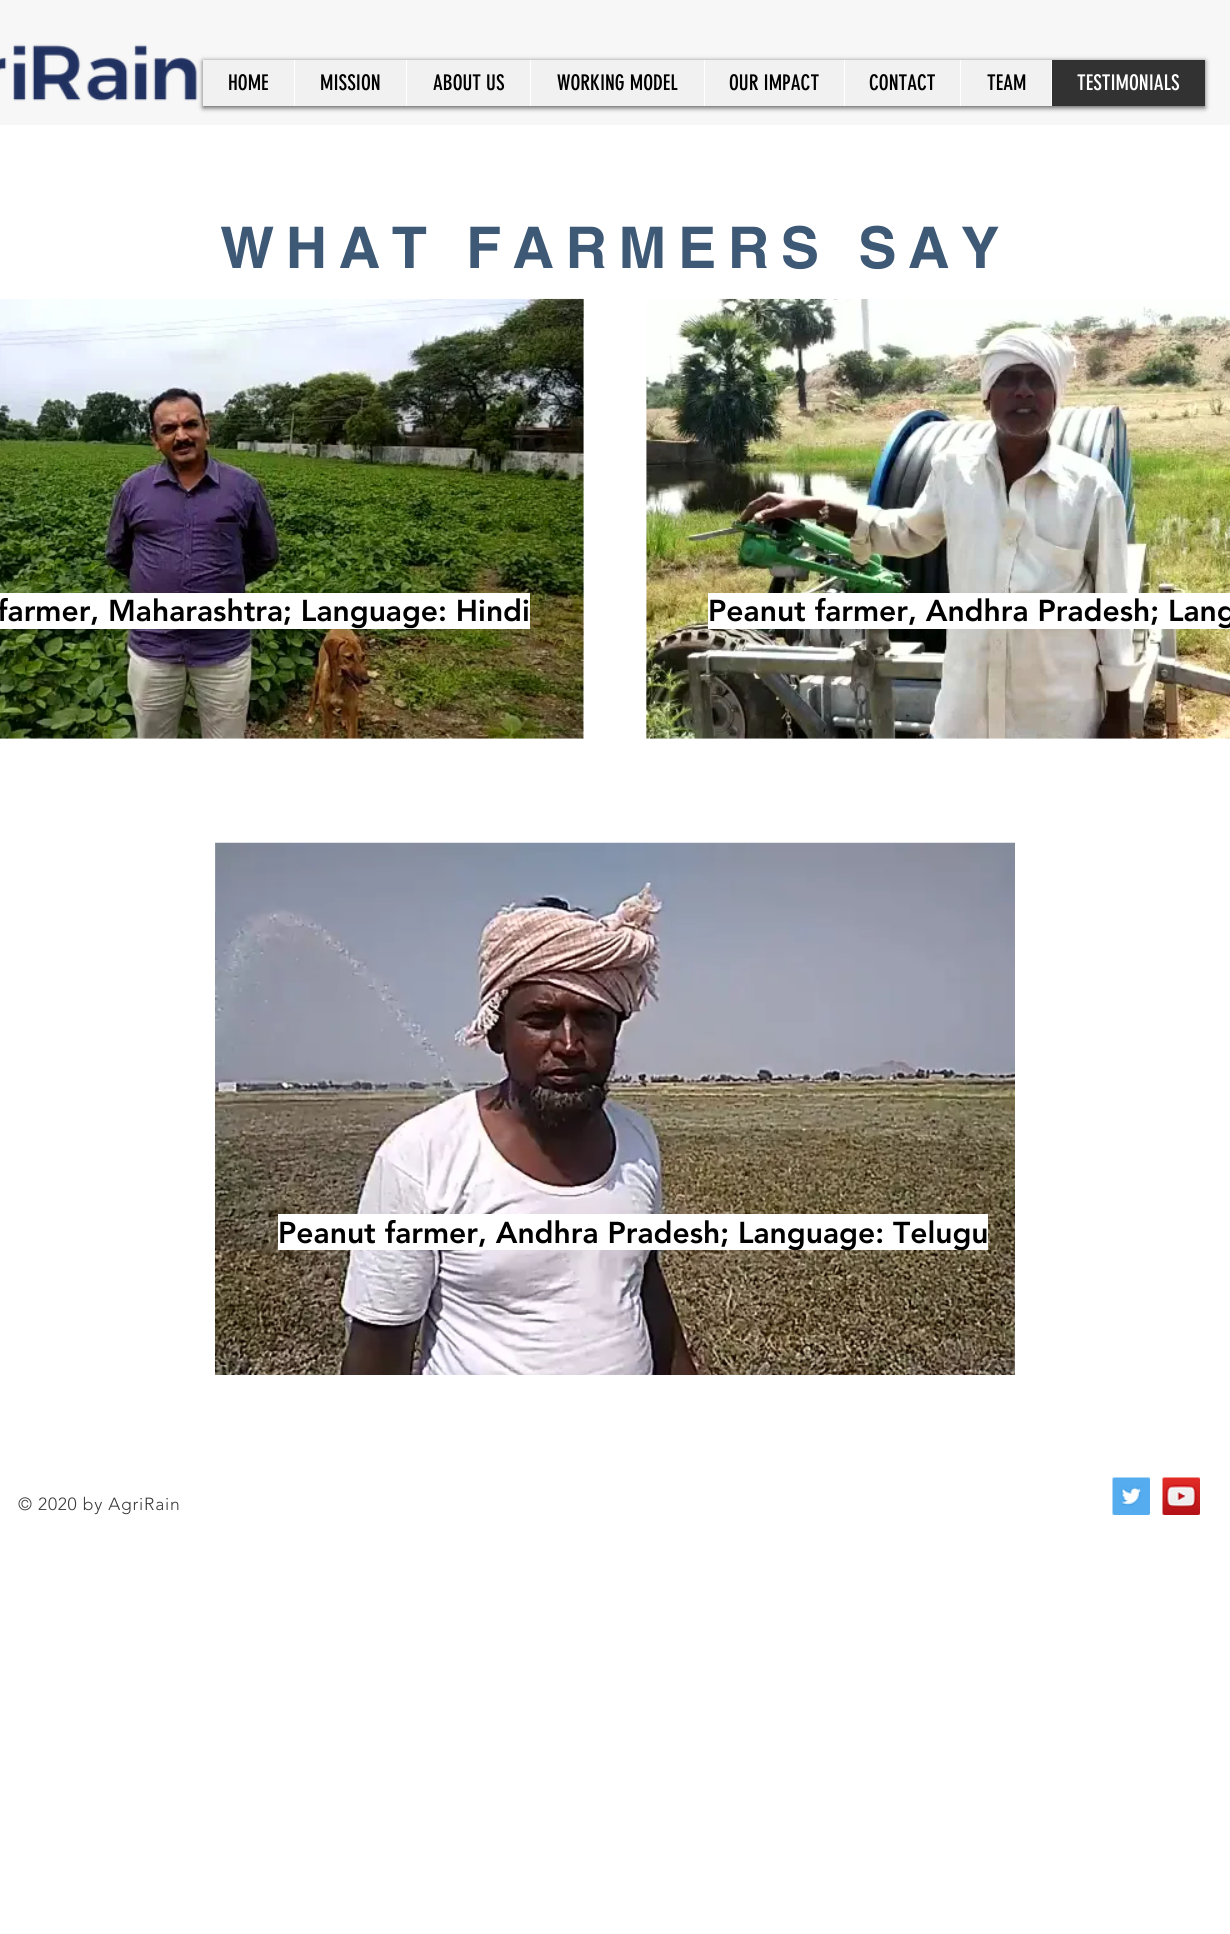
#include <cairo/cairo.h>
#include <math.h>
#include <stddef.h>

typedef struct { double x, y; const char *s; } line_t;
typedef struct { double x, y, w, h; unsigned color; } box_t;
static cairo_t *cr;

static void rgb(unsigned color)
{
	cairo_set_source_rgb(cr, (color >> 16) / 255.0, (color >> 8 & 255) / 255.0, (color & 255) / 255.0);
}

static void tracked(double x, double y, const char *s, double letter, double word)
{
	cairo_move_to(cr, x, y);
	while (*s) {
		char ch[5] = {0};
		int n = 0;
		do ch[n++] = *s++; while ((*s & 0xC0) == 0x80);
		cairo_show_text(cr, ch);
		cairo_rel_move_to(cr, letter + word * (*ch == ' '), 0);
	}
}

static void rrect(double x, double y, double w, double h, double r)
{
	cairo_new_sub_path(cr);
	cairo_arc(cr, x + w - r, y + h - r, r, 0, M_PI / 2);
	cairo_arc(cr, x + r, y + h - r, r, M_PI / 2, M_PI);
	cairo_arc(cr, x + r, y + r, r, M_PI, 1.5 * M_PI);
	cairo_arc(cr, x + w - r, y + r, r, 1.5 * M_PI, 2 * M_PI);
	cairo_close_path(cr);
}

static void soft_shadow(double x, double y, double w, double h, double r, double blur, double alpha)
{
	cairo_push_group_with_content(cr, CAIRO_CONTENT_ALPHA);
	cairo_set_operator(cr, CAIRO_OPERATOR_SOURCE);
	for (int i = 15; i >= -15 && fmin(w, h) + blur * i / 3 > 0; i -= 2) {
		double e = blur * i / 6;
		cairo_set_source_rgba(cr, 0, 0, 0, alpha * erfc((i - 1) / 8.5) / 2);
		rrect(x - e, y - e, w + 2 * e, h + 2 * e, fmax(0, fmin(r + e + blur * .6, fmin(w, h) / 2 + e)));
		cairo_fill(cr);
	}
	cairo_pattern_t *soft = cairo_pop_group(cr);
	cairo_mask(cr, soft);
	cairo_pattern_destroy(soft);
}

static void image(const char *path, double x, double y, double w, double h)
{
	cairo_surface_t *image = cairo_image_surface_create_from_png(path);
	cairo_save(cr);
	cairo_set_source_surface(cr, image, x, y);
	cairo_rectangle(cr, x, y, w, h);
	cairo_fill(cr);
	cairo_restore(cr);
	cairo_surface_destroy(image);
}

int main(void) {
	cairo_surface_t *surface = cairo_image_surface_create(CAIRO_FORMAT_RGB24, 1230, 1934);
	cr = cairo_create(surface);
	cairo_font_options_t *options = cairo_font_options_create();
	cairo_font_options_set_hint_metrics(options, CAIRO_HINT_METRICS_OFF);
	cairo_font_options_set_hint_style(options, CAIRO_HINT_STYLE_NONE);
	cairo_set_font_options(cr, options);
	cairo_set_miter_limit(cr, 4);
	rgb(0xffffff);
	cairo_paint(cr);
	rgb(0xf7f7f7);
	cairo_rectangle(cr, 0, 0, 1230, 125);
	cairo_fill(cr);
	image("img/1.png", 0, 44, 198, 57);
	rgb(0x000000);
	soft_shadow(203, 61, 1002, 47, 0, 2.5, 0.6);
	{
		static const box_t items[] = {
			{203, 60, 848, 46, 0xf1f1f1},
			{294, 60, 1, 46, 0xffffff},
			{406, 60, 1, 46, 0xffffff},
			{530, 60, 1, 46, 0xffffff},
			{704, 60, 1, 46, 0xffffff},
			{844, 60, 1, 46, 0xffffff},
			{960, 60, 1, 46, 0xffffff},
			{1052, 60, 153, 46, 0x323232},
			{1051, 60, 1, 46, 0xffffff},
		};
		for (size_t i = 0; i < sizeof items / sizeof *items; i++) {
			rgb(items[i].color);
			cairo_rectangle(cr, items[i].x, items[i].y, items[i].w, items[i].h);
			cairo_fill(cr);
		}
	}
	image("img/2.png", 0, 298, 584, 441);
	image("img/3.png", 646, 298, 584, 441);
	cairo_rectangle(cr, 0, 593, 530, 36);
	cairo_fill(cr);
	cairo_rectangle(cr, 708, 593, 522, 36);
	cairo_fill(cr);
	image("img/4.png", 215, 842, 800, 533);
	cairo_rectangle(cr, 278, 1214, 710, 36);
	cairo_fill(cr);
	image("img/5.png", 1112, 1477, 38, 38);
	image("img/6.png", 1162, 1477, 38, 38);
	cairo_select_font_face(cr, "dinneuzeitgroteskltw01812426", CAIRO_FONT_SLANT_NORMAL, CAIRO_FONT_WEIGHT_NORMAL);
	cairo_set_font_size(cr, 21.25);
	rgb(0x000000);
	{
		static const line_t items[] = {
			{228, 90, "HOME"},
			{320, 90, "MISSION"},
			{433, 90, "ABOUT US"},
			{557, 90, "WORKING MODEL"},
			{729, 90, "OUR IMPACT"},
			{869, 90, "CONTACT"},
			{987, 90, "TEAM"},
		};
		for (size_t i = 0; i < sizeof items / sizeof *items; i++) {
			cairo_move_to(cr, items[i].x, items[i].y);
			cairo_show_text(cr, items[i].s);
		}
	}
	rgb(0xffffff);
	cairo_move_to(cr, 1077, 90);
	cairo_show_text(cr, "TESTIMONIALS");
	cairo_select_font_face(cr, "helvetica", CAIRO_FONT_SLANT_NORMAL, CAIRO_FONT_WEIGHT_BOLD);
	cairo_set_font_size(cr, 57.5);
	rgb(0x3d5975);
	tracked(220, 268, "WHAT FARMERS SAY", 11.5, 0);
	cairo_select_font_face(cr, "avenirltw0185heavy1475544 Black", CAIRO_FONT_SLANT_NORMAL, CAIRO_FONT_WEIGHT_NORMAL);
	cairo_set_font_size(cr, 30);
	rgb(0x000000);
	{
		static const line_t items[] = {
			{-3, 621, "farmer, Maharashtra; Language: Hindi"},
			{708, 621, "Peanut farmer, Andhra Pradesh; Lang"},
			{278, 1243, "Peanut farmer, Andhra Pradesh; Language: Telugu"},
		};
		for (size_t i = 0; i < sizeof items / sizeof *items; i++) {
			cairo_move_to(cr, items[i].x, items[i].y);
			cairo_show_text(cr, items[i].s);
		}
	}
	cairo_select_font_face(cr, "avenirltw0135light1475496 Light", CAIRO_FONT_SLANT_NORMAL, CAIRO_FONT_WEIGHT_NORMAL);
	cairo_set_font_size(cr, 17.5);
	rgb(0x3b3a3a);
	tracked(18, 1510, "© 2020 by AgriRain", 0.75, 0);
	cairo_surface_write_to_png(surface, "page.png");
	cairo_font_options_destroy(options);
	cairo_destroy(cr);
	cairo_surface_destroy(surface);
	return 0;
}
